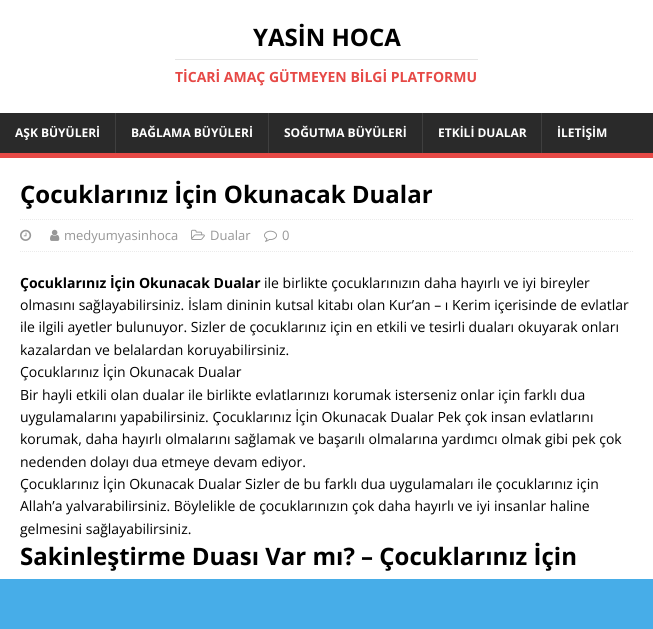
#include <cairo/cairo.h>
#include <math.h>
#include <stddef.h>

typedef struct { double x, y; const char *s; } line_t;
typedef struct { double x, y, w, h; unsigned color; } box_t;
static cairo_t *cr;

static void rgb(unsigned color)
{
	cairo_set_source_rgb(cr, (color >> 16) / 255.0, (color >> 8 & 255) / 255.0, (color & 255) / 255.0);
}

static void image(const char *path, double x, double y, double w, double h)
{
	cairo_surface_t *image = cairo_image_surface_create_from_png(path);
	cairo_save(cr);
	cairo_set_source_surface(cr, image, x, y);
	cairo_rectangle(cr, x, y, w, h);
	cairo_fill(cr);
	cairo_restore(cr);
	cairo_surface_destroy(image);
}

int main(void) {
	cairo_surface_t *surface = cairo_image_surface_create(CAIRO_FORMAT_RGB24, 653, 629);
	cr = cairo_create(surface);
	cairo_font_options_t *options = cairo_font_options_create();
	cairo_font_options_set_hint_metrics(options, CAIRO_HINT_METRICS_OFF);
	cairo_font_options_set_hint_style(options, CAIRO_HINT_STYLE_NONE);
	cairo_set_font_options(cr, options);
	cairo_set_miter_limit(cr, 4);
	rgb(0xffffff);
	cairo_paint(cr);
	{
		static const box_t items[] = {
			{175, 59, 303, 1, 0xe5e5e5},
			{0, 113, 653, 40, 0x2a2a2a},
			{0, 153, 653, 5, 0xe64946},
			{115, 113, 1, 40, 0x3f3f3f},
			{268, 113, 1, 40, 0x3f3f3f},
			{422, 113, 1, 40, 0x3f3f3f},
			{541, 113, 1, 40, 0x3f3f3f},
		};
		for (size_t i = 0; i < sizeof items / sizeof *items; i++) {
			rgb(items[i].color);
			cairo_rectangle(cr, items[i].x, items[i].y, items[i].w, items[i].h);
			cairo_fill(cr);
		}
	}
	cairo_new_path(cr);
	cairo_move_to(cr, 20, 219.5);
	cairo_line_to(cr, 633, 219.5);
	rgb(0xebebeb);
	cairo_set_line_width(cr, 1);
	cairo_set_dash(cr, (double[]){1, 1}, 2, 0);
	cairo_stroke(cr);
	cairo_new_path(cr);
	cairo_move_to(cr, 20, 251.5);
	cairo_line_to(cr, 633, 251.5);
	cairo_stroke(cr);
	image("img/1.png", 20, 229, 12, 12);
	image("img/2.png", 50, 229, 10, 12);
	image("img/3.png", 191, 229, 14, 11);
	image("img/4.png", 264, 230, 13, 12);
	rgb(0x47ade8);
	cairo_rectangle(cr, 0, 579, 653, 50);
	cairo_fill(cr);
	cairo_select_font_face(cr, "Open Sans", CAIRO_FONT_SLANT_NORMAL, CAIRO_FONT_WEIGHT_BOLD);
	cairo_set_font_size(cr, 24);
	rgb(0x000000);
	cairo_move_to(cr, 253, 46);
	cairo_show_text(cr, "YASİN HOCA");
	cairo_set_font_size(cr, 14);
	rgb(0xe64946);
	cairo_move_to(cr, 175, 82);
	cairo_show_text(cr, "TİCARİ AMAÇ GÜTMEYEN BİLGİ PLATFORMU");
	cairo_set_font_size(cr, 12);
	rgb(0xffffff);
	{
		static const line_t items[] = {
			{15, 137, "AŞK BÜYÜLERİ"},
			{131, 137, "BAĞLAMA BÜYÜLERİ"},
			{284, 137, "SOĞUTMA BÜYÜLERİ"},
			{438, 137, "ETKİLİ DUALAR"},
			{557, 137, "İLETİŞİM"},
		};
		for (size_t i = 0; i < sizeof items / sizeof *items; i++) {
			cairo_move_to(cr, items[i].x, items[i].y);
			cairo_show_text(cr, items[i].s);
		}
	}
	cairo_set_font_size(cr, 24);
	rgb(0x000000);
	cairo_move_to(cr, 20, 203);
	cairo_show_text(cr, "Çocuklarınız İçin Okunacak Dualar");
	cairo_select_font_face(cr, "Open Sans", CAIRO_FONT_SLANT_NORMAL, CAIRO_FONT_WEIGHT_NORMAL);
	cairo_set_font_size(cr, 13);
	rgb(0x979797);
	{
		static const line_t items[] = {
			{64, 240, "medyumyasinhoca"},
			{210, 240, "Dualar"},
			{282, 240, "0"},
		};
		for (size_t i = 0; i < sizeof items / sizeof *items; i++) {
			cairo_move_to(cr, items[i].x, items[i].y);
			cairo_show_text(cr, items[i].s);
		}
	}
	cairo_select_font_face(cr, "Open Sans", CAIRO_FONT_SLANT_NORMAL, CAIRO_FONT_WEIGHT_BOLD);
	cairo_set_font_size(cr, 14);
	rgb(0x000000);
	cairo_move_to(cr, 20, 288);
	cairo_show_text(cr, "Çocuklarınız İçin Okunacak Dualar");
	cairo_select_font_face(cr, "Open Sans", CAIRO_FONT_SLANT_NORMAL, CAIRO_FONT_WEIGHT_NORMAL);
	{
		static const line_t items[] = {
			{264, 288, "ile birlikte çocuklarınızın daha hayırlı ve iyi bireyler"},
			{20, 310, "olmasını sağlayabilirsiniz. İslam dininin kutsal kitabı olan Kur’an – ı Kerim içerisinde de evlatlar"},
			{20, 332, "ile ilgili ayetler bulunuyor. Sizler de çocuklarınız için en etkili ve tesirli duaları okuyarak onları"},
			{20, 355, "kazalardan ve belalardan koruyabilirsiniz."},
			{20, 377, "Çocuklarınız İçin Okunacak Dualar"},
			{20, 400, "Bir hayli etkili olan dualar ile birlikte evlatlarınızı korumak isterseniz onlar için farklı dua"},
			{20, 422, "uygulamalarını yapabilirsiniz. Çocuklarınız İçin Okunacak Dualar Pek çok insan evlatlarını"},
			{20, 444, "korumak, daha hayırlı olmalarını sağlamak ve başarılı olmalarına yardımcı olmak gibi pek çok"},
			{20, 467, "nedenden dolayı dua etmeye devam ediyor."},
			{20, 489, "Çocuklarınız İçin Okunacak Dualar Sizler de bu farklı dua uygulamaları ile çocuklarınız için"},
			{20, 511, "Allah’a yalvarabilirsiniz. Böylelikle de çocuklarınızın çok daha hayırlı ve iyi insanlar haline"},
			{20, 534, "gelmesini sağlayabilirsiniz."},
		};
		for (size_t i = 0; i < sizeof items / sizeof *items; i++) {
			cairo_move_to(cr, items[i].x, items[i].y);
			cairo_show_text(cr, items[i].s);
		}
	}
	cairo_select_font_face(cr, "Open Sans", CAIRO_FONT_SLANT_NORMAL, CAIRO_FONT_WEIGHT_BOLD);
	cairo_set_font_size(cr, 24);
	cairo_move_to(cr, 20, 565);
	cairo_show_text(cr, "Sakinleştirme Duası Var mı? – Çocuklarınız İçin");
	cairo_surface_write_to_png(surface, "page.png");
	cairo_font_options_destroy(options);
	cairo_destroy(cr);
	cairo_surface_destroy(surface);
	return 0;
}
